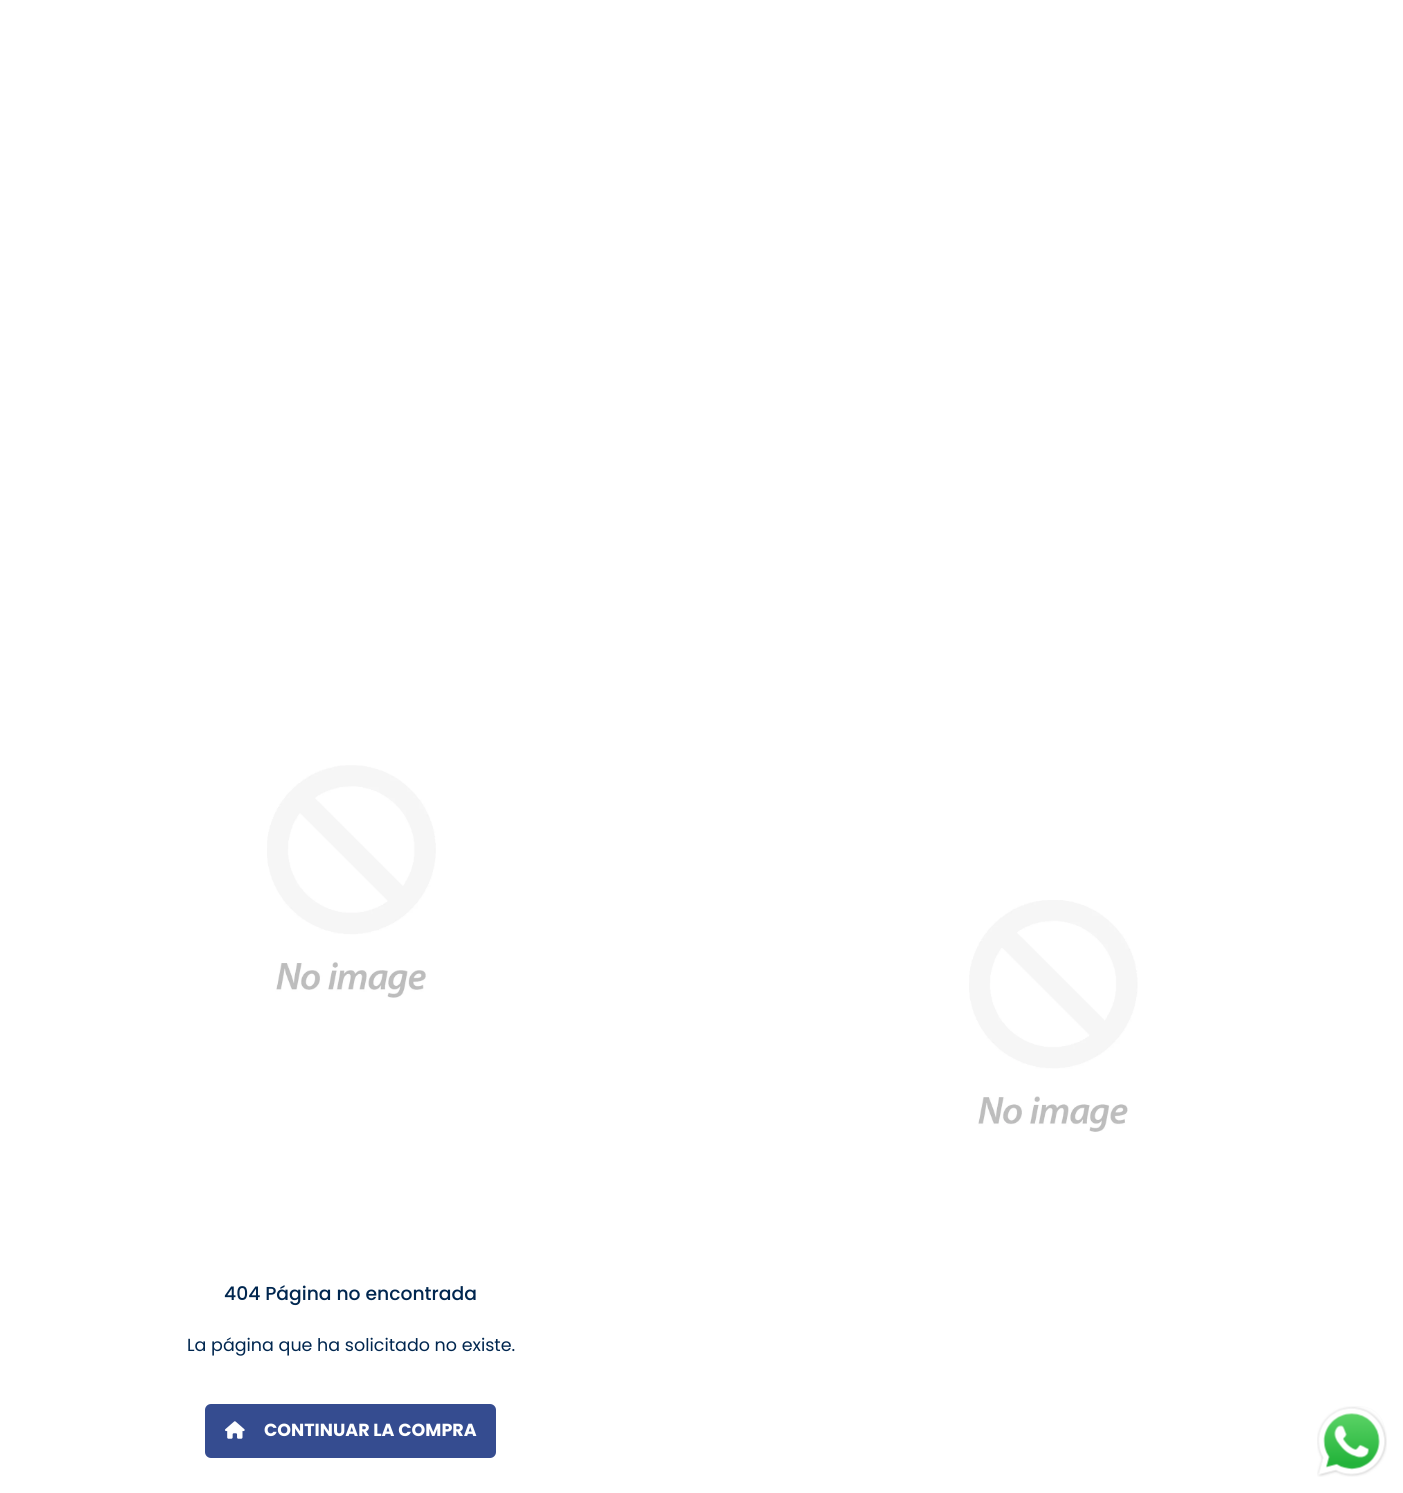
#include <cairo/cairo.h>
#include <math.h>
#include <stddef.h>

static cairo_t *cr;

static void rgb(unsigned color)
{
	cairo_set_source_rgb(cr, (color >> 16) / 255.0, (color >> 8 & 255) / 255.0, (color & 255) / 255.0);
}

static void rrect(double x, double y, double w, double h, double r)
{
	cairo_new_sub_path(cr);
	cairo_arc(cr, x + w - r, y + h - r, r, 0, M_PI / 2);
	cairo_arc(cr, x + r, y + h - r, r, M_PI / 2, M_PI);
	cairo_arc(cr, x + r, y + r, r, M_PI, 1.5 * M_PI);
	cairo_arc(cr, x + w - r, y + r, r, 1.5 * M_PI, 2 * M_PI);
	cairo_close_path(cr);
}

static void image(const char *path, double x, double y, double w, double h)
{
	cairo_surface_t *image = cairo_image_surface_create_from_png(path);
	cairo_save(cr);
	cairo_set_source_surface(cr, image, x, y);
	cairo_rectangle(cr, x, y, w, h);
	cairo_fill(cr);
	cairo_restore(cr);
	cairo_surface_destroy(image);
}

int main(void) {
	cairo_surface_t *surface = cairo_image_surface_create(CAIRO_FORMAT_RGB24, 1403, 1493);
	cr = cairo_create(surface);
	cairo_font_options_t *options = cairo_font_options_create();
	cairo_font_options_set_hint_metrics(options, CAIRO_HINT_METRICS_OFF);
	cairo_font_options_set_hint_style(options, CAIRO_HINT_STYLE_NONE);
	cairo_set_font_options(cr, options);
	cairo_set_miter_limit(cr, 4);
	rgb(0xffffff);
	cairo_paint(cr);
	image("img/1.png", 969, 900, 169, 232);
	image("img/2.png", 267, 765, 169, 233);
	rgb(0x354c90);
	rrect(205, 1404, 291, 54, 6);
	cairo_fill(cr);
	image("img/3.png", 225, 1421, 20, 18);
	cairo_arc(cr, 1360, 1431, 24.5, 0, 2 * M_PI);
	rgb(0xfcfcfc);
	cairo_set_line_width(cr, 1);
	cairo_stroke(cr);
	image("img/4.png", 1317, 1406, 70, 71);
	cairo_select_font_face(cr, "Poppins Medium", CAIRO_FONT_SLANT_NORMAL, CAIRO_FONT_WEIGHT_NORMAL);
	cairo_set_font_size(cr, 18.75);
	rgb(0x00264f);
	cairo_move_to(cr, 224, 1300);
	cairo_show_text(cr, "404 Página no encontrada");
	cairo_select_font_face(cr, "Poppins", CAIRO_FONT_SLANT_NORMAL, CAIRO_FONT_WEIGHT_NORMAL);
	cairo_set_font_size(cr, 17.5);
	cairo_move_to(cr, 187, 1351);
	cairo_show_text(cr, "La página que ha solicitado no existe.");
	cairo_select_font_face(cr, "Poppins", CAIRO_FONT_SLANT_NORMAL, CAIRO_FONT_WEIGHT_BOLD);
	rgb(0xffffff);
	cairo_move_to(cr, 264, 1436);
	cairo_show_text(cr, "CONTINUAR LA COMPRA");
	cairo_surface_write_to_png(surface, "page.png");
	cairo_font_options_destroy(options);
	cairo_destroy(cr);
	cairo_surface_destroy(surface);
	return 0;
}
